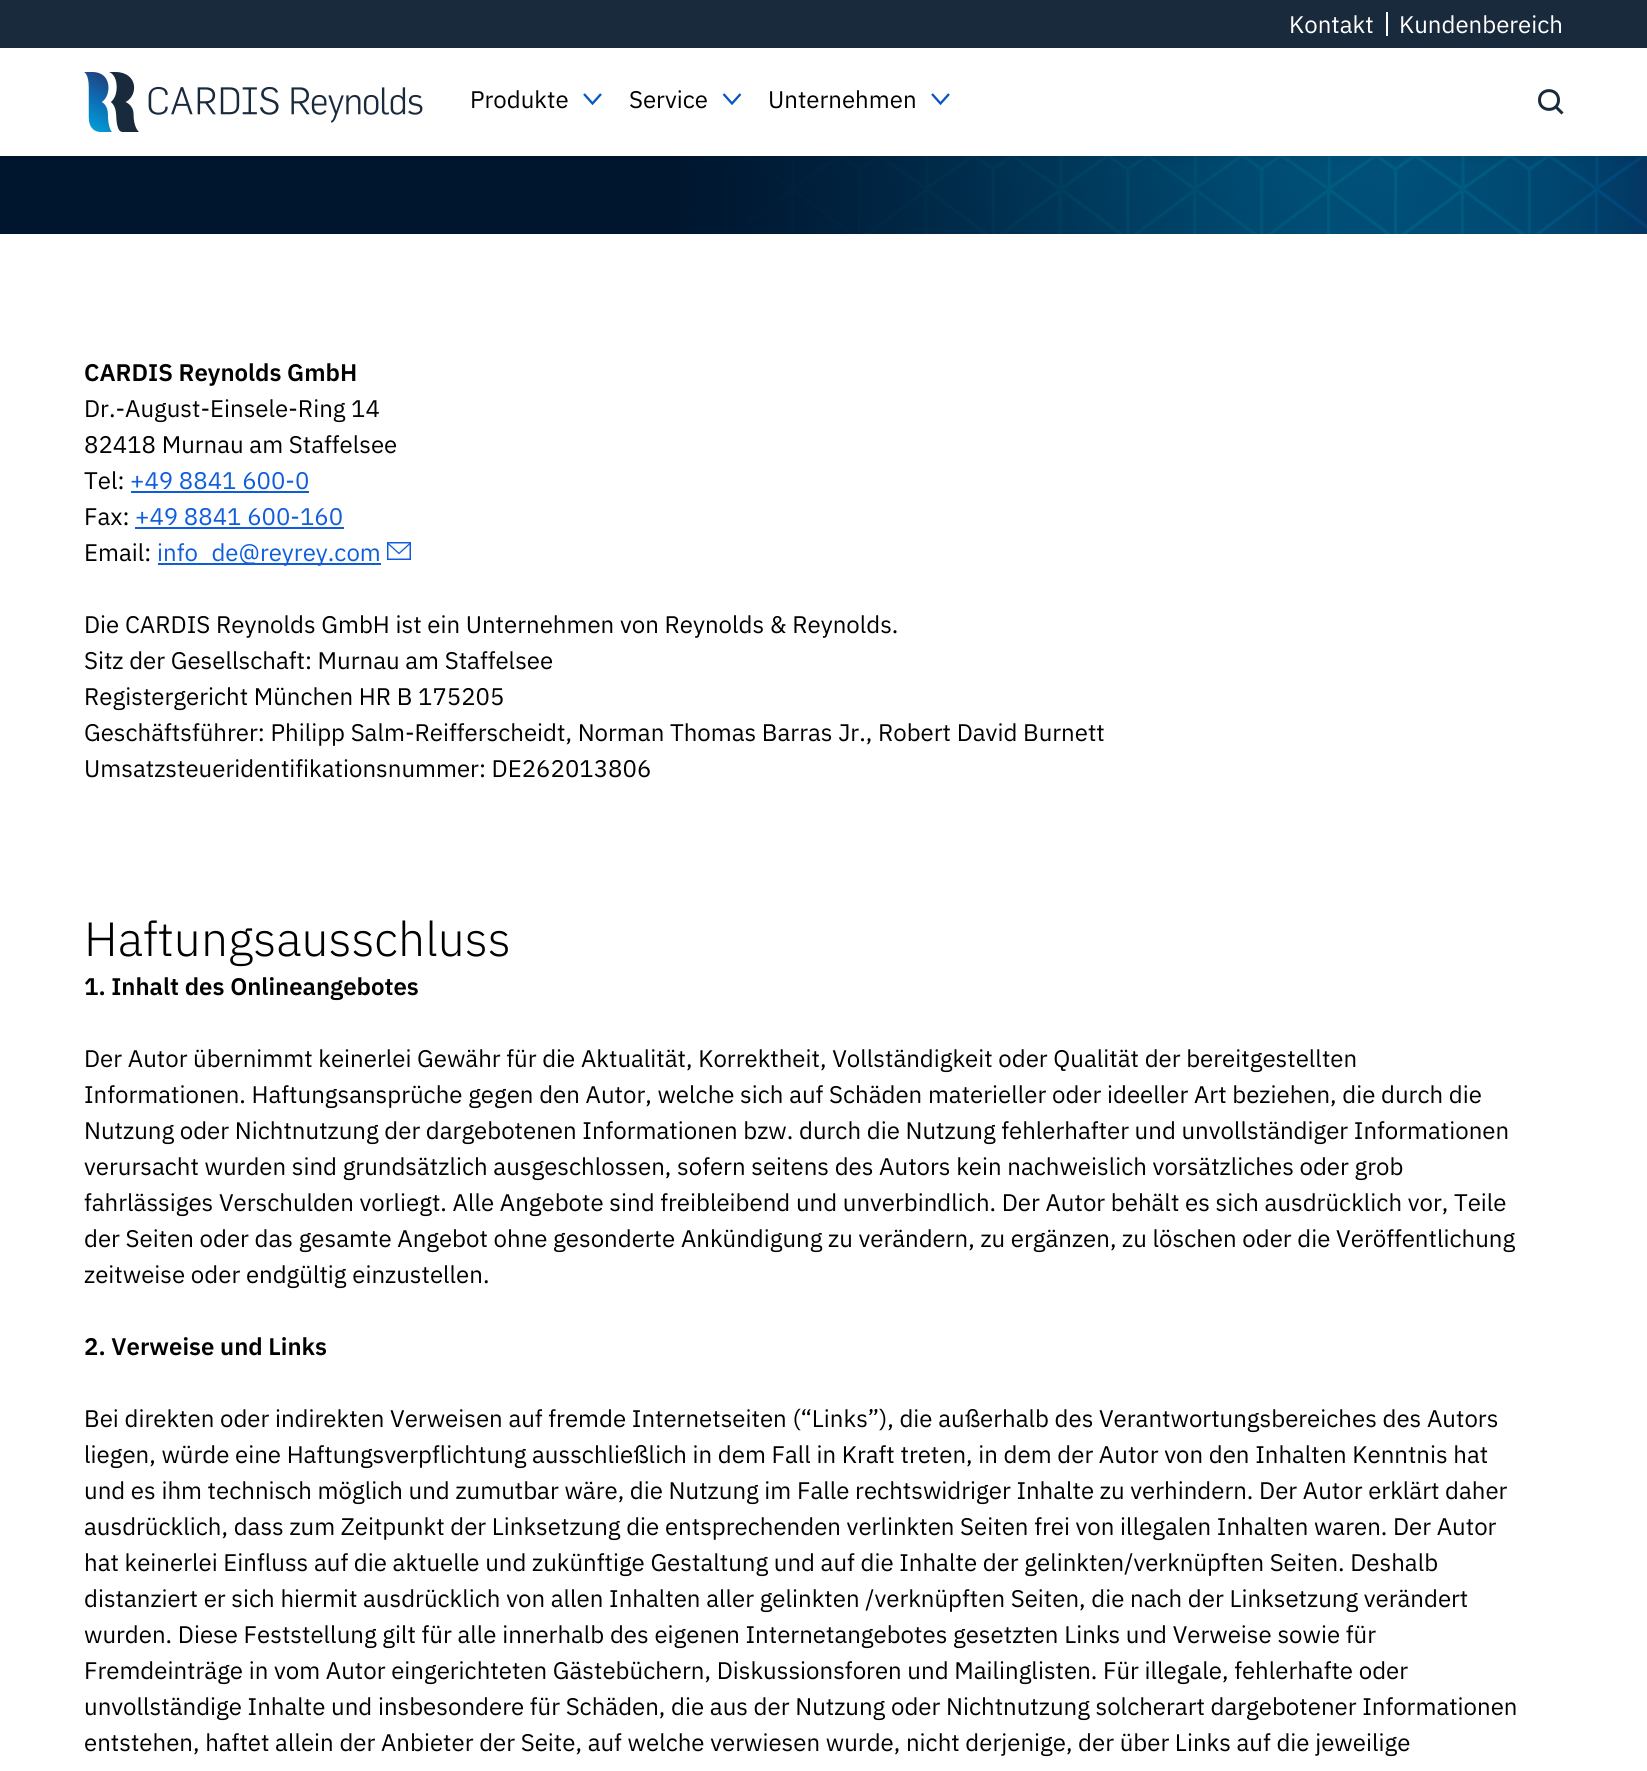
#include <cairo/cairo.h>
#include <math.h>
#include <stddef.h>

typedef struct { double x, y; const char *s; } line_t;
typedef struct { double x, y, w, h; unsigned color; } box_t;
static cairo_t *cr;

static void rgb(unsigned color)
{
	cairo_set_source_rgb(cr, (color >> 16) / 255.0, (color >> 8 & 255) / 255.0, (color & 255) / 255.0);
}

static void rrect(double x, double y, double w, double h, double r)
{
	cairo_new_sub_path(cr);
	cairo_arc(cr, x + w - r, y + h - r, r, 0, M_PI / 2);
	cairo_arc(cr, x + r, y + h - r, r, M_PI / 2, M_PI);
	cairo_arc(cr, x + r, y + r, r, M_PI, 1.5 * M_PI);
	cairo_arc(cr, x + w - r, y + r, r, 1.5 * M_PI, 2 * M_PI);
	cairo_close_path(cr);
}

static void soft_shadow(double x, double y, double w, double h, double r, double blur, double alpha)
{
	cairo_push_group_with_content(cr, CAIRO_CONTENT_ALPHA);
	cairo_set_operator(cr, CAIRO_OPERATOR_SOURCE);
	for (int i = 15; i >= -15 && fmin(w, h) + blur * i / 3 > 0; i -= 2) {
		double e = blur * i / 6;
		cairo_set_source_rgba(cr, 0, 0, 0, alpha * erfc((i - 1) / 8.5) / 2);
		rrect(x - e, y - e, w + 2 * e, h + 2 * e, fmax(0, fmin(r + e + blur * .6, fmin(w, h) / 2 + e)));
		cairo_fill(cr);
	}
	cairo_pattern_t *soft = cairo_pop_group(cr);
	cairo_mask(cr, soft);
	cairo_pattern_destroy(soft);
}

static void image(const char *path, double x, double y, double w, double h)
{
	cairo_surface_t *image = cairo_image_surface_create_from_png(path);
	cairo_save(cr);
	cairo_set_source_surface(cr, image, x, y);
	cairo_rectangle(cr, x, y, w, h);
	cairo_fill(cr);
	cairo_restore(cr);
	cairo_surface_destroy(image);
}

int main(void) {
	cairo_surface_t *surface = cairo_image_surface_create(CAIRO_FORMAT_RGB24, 1647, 1771);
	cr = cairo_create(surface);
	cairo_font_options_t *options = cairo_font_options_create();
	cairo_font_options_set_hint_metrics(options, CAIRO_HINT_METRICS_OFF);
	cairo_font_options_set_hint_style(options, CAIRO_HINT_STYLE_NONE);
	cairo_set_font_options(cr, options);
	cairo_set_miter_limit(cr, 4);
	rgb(0xffffff);
	cairo_paint(cr);
	image("img/2.png", 0, 156, 1647, 78);
	rgb(0x000000);
	soft_shadow(0, 0, 1647, 156, 0, 7.5, 0.07);
	soft_shadow(0, 0, 1647, 156, 0, 3, 0.05);
	{
		static const box_t items[] = {
			{0, 0, 1647, 48, 0x1a2a3d},
			{1386, 12, 2, 24, 0xffffff},
			{0, 48, 1647, 108, 0xffffff},
		};
		for (size_t i = 0; i < sizeof items / sizeof *items; i++) {
			rgb(items[i].color);
			cairo_rectangle(cr, items[i].x, items[i].y, items[i].w, items[i].h);
			cairo_fill(cr);
		}
	}
	image("img/1.png", 84, 72, 339, 60);
	cairo_new_path(cr);
	cairo_move_to(cr, 601, 94);
	cairo_line_to(cr, 592.5, 103.5);
	cairo_line_to(cr, 584, 94);
	rgb(0x0956c0);
	cairo_set_line_width(cr, 2.3);
	cairo_stroke(cr);
	cairo_new_path(cr);
	cairo_move_to(cr, 740.5, 94);
	cairo_line_to(cr, 732, 103.5);
	cairo_line_to(cr, 723.5, 94);
	cairo_stroke(cr);
	cairo_new_path(cr);
	cairo_move_to(cr, 949, 94);
	cairo_line_to(cr, 940.5, 103.5);
	cairo_line_to(cr, 932, 94);
	cairo_stroke(cr);
	cairo_new_path(cr);
	cairo_move_to(cr, 1558.5, 100);
	cairo_curve_to(cr, 1558.5, 112.5, 1539.5, 112.5, 1539.5, 100);
	cairo_curve_to(cr, 1539.5, 87.5, 1558.5, 87.5, 1558.5, 100);
	cairo_close_path(cr);
	cairo_move_to(cr, 1555.5, 106.5);
	cairo_line_to(cr, 1562.5, 113.5);
	rgb(0x1a2a3d);
	cairo_set_line_width(cr, 3);
	cairo_stroke(cr);
	{
		static const box_t items[] = {
			{131, 491, 178, 2, 0x0f5ddd},
			{135, 527, 209, 2, 0x0f5ddd},
			{158, 563, 223, 2, 0x0f5ddd},
		};
		for (size_t i = 0; i < sizeof items / sizeof *items; i++) {
			rgb(items[i].color);
			cairo_rectangle(cr, items[i].x, items[i].y, items[i].w, items[i].h);
			cairo_fill(cr);
		}
	}
	cairo_rectangle(cr, 387.75, 542.75, 22.5, 16.5);
	cairo_set_line_width(cr, 1.5);
	cairo_stroke(cr);
	cairo_new_path(cr);
	cairo_move_to(cr, 387.5, 543);
	cairo_line_to(cr, 399, 553.5);
	cairo_line_to(cr, 410.5, 543);
	cairo_set_line_width(cr, 1.3);
	cairo_stroke(cr);
	cairo_select_font_face(cr, "IBM Plex Sans", CAIRO_FONT_SLANT_NORMAL, CAIRO_FONT_WEIGHT_NORMAL);
	cairo_set_font_size(cr, 24);
	rgb(0xffffff);
	cairo_move_to(cr, 1289, 33);
	cairo_show_text(cr, "Kontakt");
	cairo_move_to(cr, 1399, 33);
	cairo_show_text(cr, "Kundenbereich");
	rgb(0x000000);
	{
		static const line_t items[] = {
			{470, 108, "Produkte"},
			{629, 108, "Service"},
			{768, 108, "Unternehmen"},
		};
		for (size_t i = 0; i < sizeof items / sizeof *items; i++) {
			cairo_move_to(cr, items[i].x, items[i].y);
			cairo_show_text(cr, items[i].s);
		}
	}
	cairo_select_font_face(cr, "IBM Plex Sans SemiBold", CAIRO_FONT_SLANT_NORMAL, CAIRO_FONT_WEIGHT_NORMAL);
	cairo_move_to(cr, 84, 381);
	cairo_show_text(cr, "CARDIS Reynolds GmbH");
	cairo_select_font_face(cr, "IBM Plex Sans", CAIRO_FONT_SLANT_NORMAL, CAIRO_FONT_WEIGHT_NORMAL);
	{
		static const line_t items[] = {
			{84, 417, "Dr.-August-Einsele-Ring 14"},
			{84, 453, "82418 Murnau am Staffelsee"},
			{84, 489, "Tel:"},
		};
		for (size_t i = 0; i < sizeof items / sizeof *items; i++) {
			cairo_move_to(cr, items[i].x, items[i].y);
			cairo_show_text(cr, items[i].s);
		}
	}
	rgb(0x0f5ddd);
	cairo_move_to(cr, 130, 489);
	cairo_show_text(cr, "+49 8841 600-0");
	rgb(0x000000);
	cairo_move_to(cr, 84, 525);
	cairo_show_text(cr, "Fax:");
	rgb(0x0f5ddd);
	cairo_move_to(cr, 135, 525);
	cairo_show_text(cr, "+49 8841 600-160");
	rgb(0x000000);
	cairo_move_to(cr, 84, 561);
	cairo_show_text(cr, "Email:");
	rgb(0x0f5ddd);
	cairo_move_to(cr, 157, 561);
	cairo_show_text(cr, "info_de@reyrey.com");
	rgb(0x000000);
	{
		static const line_t items[] = {
			{84, 633, "Die CARDIS Reynolds GmbH ist ein Unternehmen von Reynolds & Reynolds."},
			{84, 669, "Sitz der Gesellschaft: Murnau am Staffelsee"},
			{84, 705, "Registergericht München HR B 175205"},
			{84, 741, "Geschäftsführer: Philipp Salm-Reifferscheidt, Norman Thomas Barras Jr., Robert David Burnett"},
			{84, 777, "Umsatzsteueridentifikationsnummer: DE262013806"},
		};
		for (size_t i = 0; i < sizeof items / sizeof *items; i++) {
			cairo_move_to(cr, items[i].x, items[i].y);
			cairo_show_text(cr, items[i].s);
		}
	}
	cairo_select_font_face(cr, "IBM Plex Sans Light", CAIRO_FONT_SLANT_NORMAL, CAIRO_FONT_WEIGHT_NORMAL);
	cairo_set_font_size(cr, 48);
	cairo_move_to(cr, 84, 956);
	cairo_show_text(cr, "Haftungsausschluss");
	cairo_select_font_face(cr, "IBM Plex Sans SemiBold", CAIRO_FONT_SLANT_NORMAL, CAIRO_FONT_WEIGHT_NORMAL);
	cairo_set_font_size(cr, 24);
	cairo_move_to(cr, 84, 995);
	cairo_show_text(cr, "1. Inhalt des Onlineangebotes");
	cairo_select_font_face(cr, "IBM Plex Sans", CAIRO_FONT_SLANT_NORMAL, CAIRO_FONT_WEIGHT_NORMAL);
	{
		static const line_t items[] = {
			{84, 1067, "Der Autor übernimmt keinerlei Gewähr für die Aktualität, Korrektheit, Vollständigkeit oder Qualität der bereitgestellten"},
			{84, 1103, "Informationen. Haftungsansprüche gegen den Autor, welche sich auf Schäden materieller oder ideeller Art beziehen, die durch die"},
			{84, 1139, "Nutzung oder Nichtnutzung der dargebotenen Informationen bzw. durch die Nutzung fehlerhafter und unvollständiger Informationen"},
			{84, 1175, "verursacht wurden sind grundsätzlich ausgeschlossen, sofern seitens des Autors kein nachweislich vorsätzliches oder grob"},
			{84, 1211, "fahrlässiges Verschulden vorliegt. Alle Angebote sind freibleibend und unverbindlich. Der Autor behält es sich ausdrücklich vor, Teile"},
			{84, 1247, "der Seiten oder das gesamte Angebot ohne gesonderte Ankündigung zu verändern, zu ergänzen, zu löschen oder die Veröffentlichung"},
			{84, 1283, "zeitweise oder endgültig einzustellen."},
		};
		for (size_t i = 0; i < sizeof items / sizeof *items; i++) {
			cairo_move_to(cr, items[i].x, items[i].y);
			cairo_show_text(cr, items[i].s);
		}
	}
	cairo_select_font_face(cr, "IBM Plex Sans SemiBold", CAIRO_FONT_SLANT_NORMAL, CAIRO_FONT_WEIGHT_NORMAL);
	cairo_move_to(cr, 84, 1355);
	cairo_show_text(cr, "2. Verweise und Links");
	cairo_select_font_face(cr, "IBM Plex Sans", CAIRO_FONT_SLANT_NORMAL, CAIRO_FONT_WEIGHT_NORMAL);
	{
		static const line_t items[] = {
			{84, 1427, "Bei direkten oder indirekten Verweisen auf fremde Internetseiten (“Links”), die außerhalb des Verantwortungsbereiches des Autors"},
			{84, 1463, "liegen, würde eine Haftungsverpflichtung ausschließlich in dem Fall in Kraft treten, in dem der Autor von den Inhalten Kenntnis hat"},
			{84, 1499, "und es ihm technisch möglich und zumutbar wäre, die Nutzung im Falle rechtswidriger Inhalte zu verhindern. Der Autor erklärt daher"},
			{84, 1535, "ausdrücklich, dass zum Zeitpunkt der Linksetzung die entsprechenden verlinkten Seiten frei von illegalen Inhalten waren. Der Autor"},
			{84, 1571, "hat keinerlei Einfluss auf die aktuelle und zukünftige Gestaltung und auf die Inhalte der gelinkten/verknüpften Seiten. Deshalb"},
			{84, 1607, "distanziert er sich hiermit ausdrücklich von allen Inhalten aller gelinkten /verknüpften Seiten, die nach der Linksetzung verändert"},
			{84, 1643, "wurden. Diese Feststellung gilt für alle innerhalb des eigenen Internetangebotes gesetzten Links und Verweise sowie für"},
			{84, 1679, "Fremdeinträge in vom Autor eingerichteten Gästebüchern, Diskussionsforen und Mailinglisten. Für illegale, fehlerhafte oder"},
			{84, 1715, "unvollständige Inhalte und insbesondere für Schäden, die aus der Nutzung oder Nichtnutzung solcherart dargebotener Informationen"},
			{84, 1751, "entstehen, haftet allein der Anbieter der Seite, auf welche verwiesen wurde, nicht derjenige, der über Links auf die jeweilige"},
		};
		for (size_t i = 0; i < sizeof items / sizeof *items; i++) {
			cairo_move_to(cr, items[i].x, items[i].y);
			cairo_show_text(cr, items[i].s);
		}
	}
	cairo_surface_write_to_png(surface, "page.png");
	cairo_font_options_destroy(options);
	cairo_destroy(cr);
	cairo_surface_destroy(surface);
	return 0;
}
